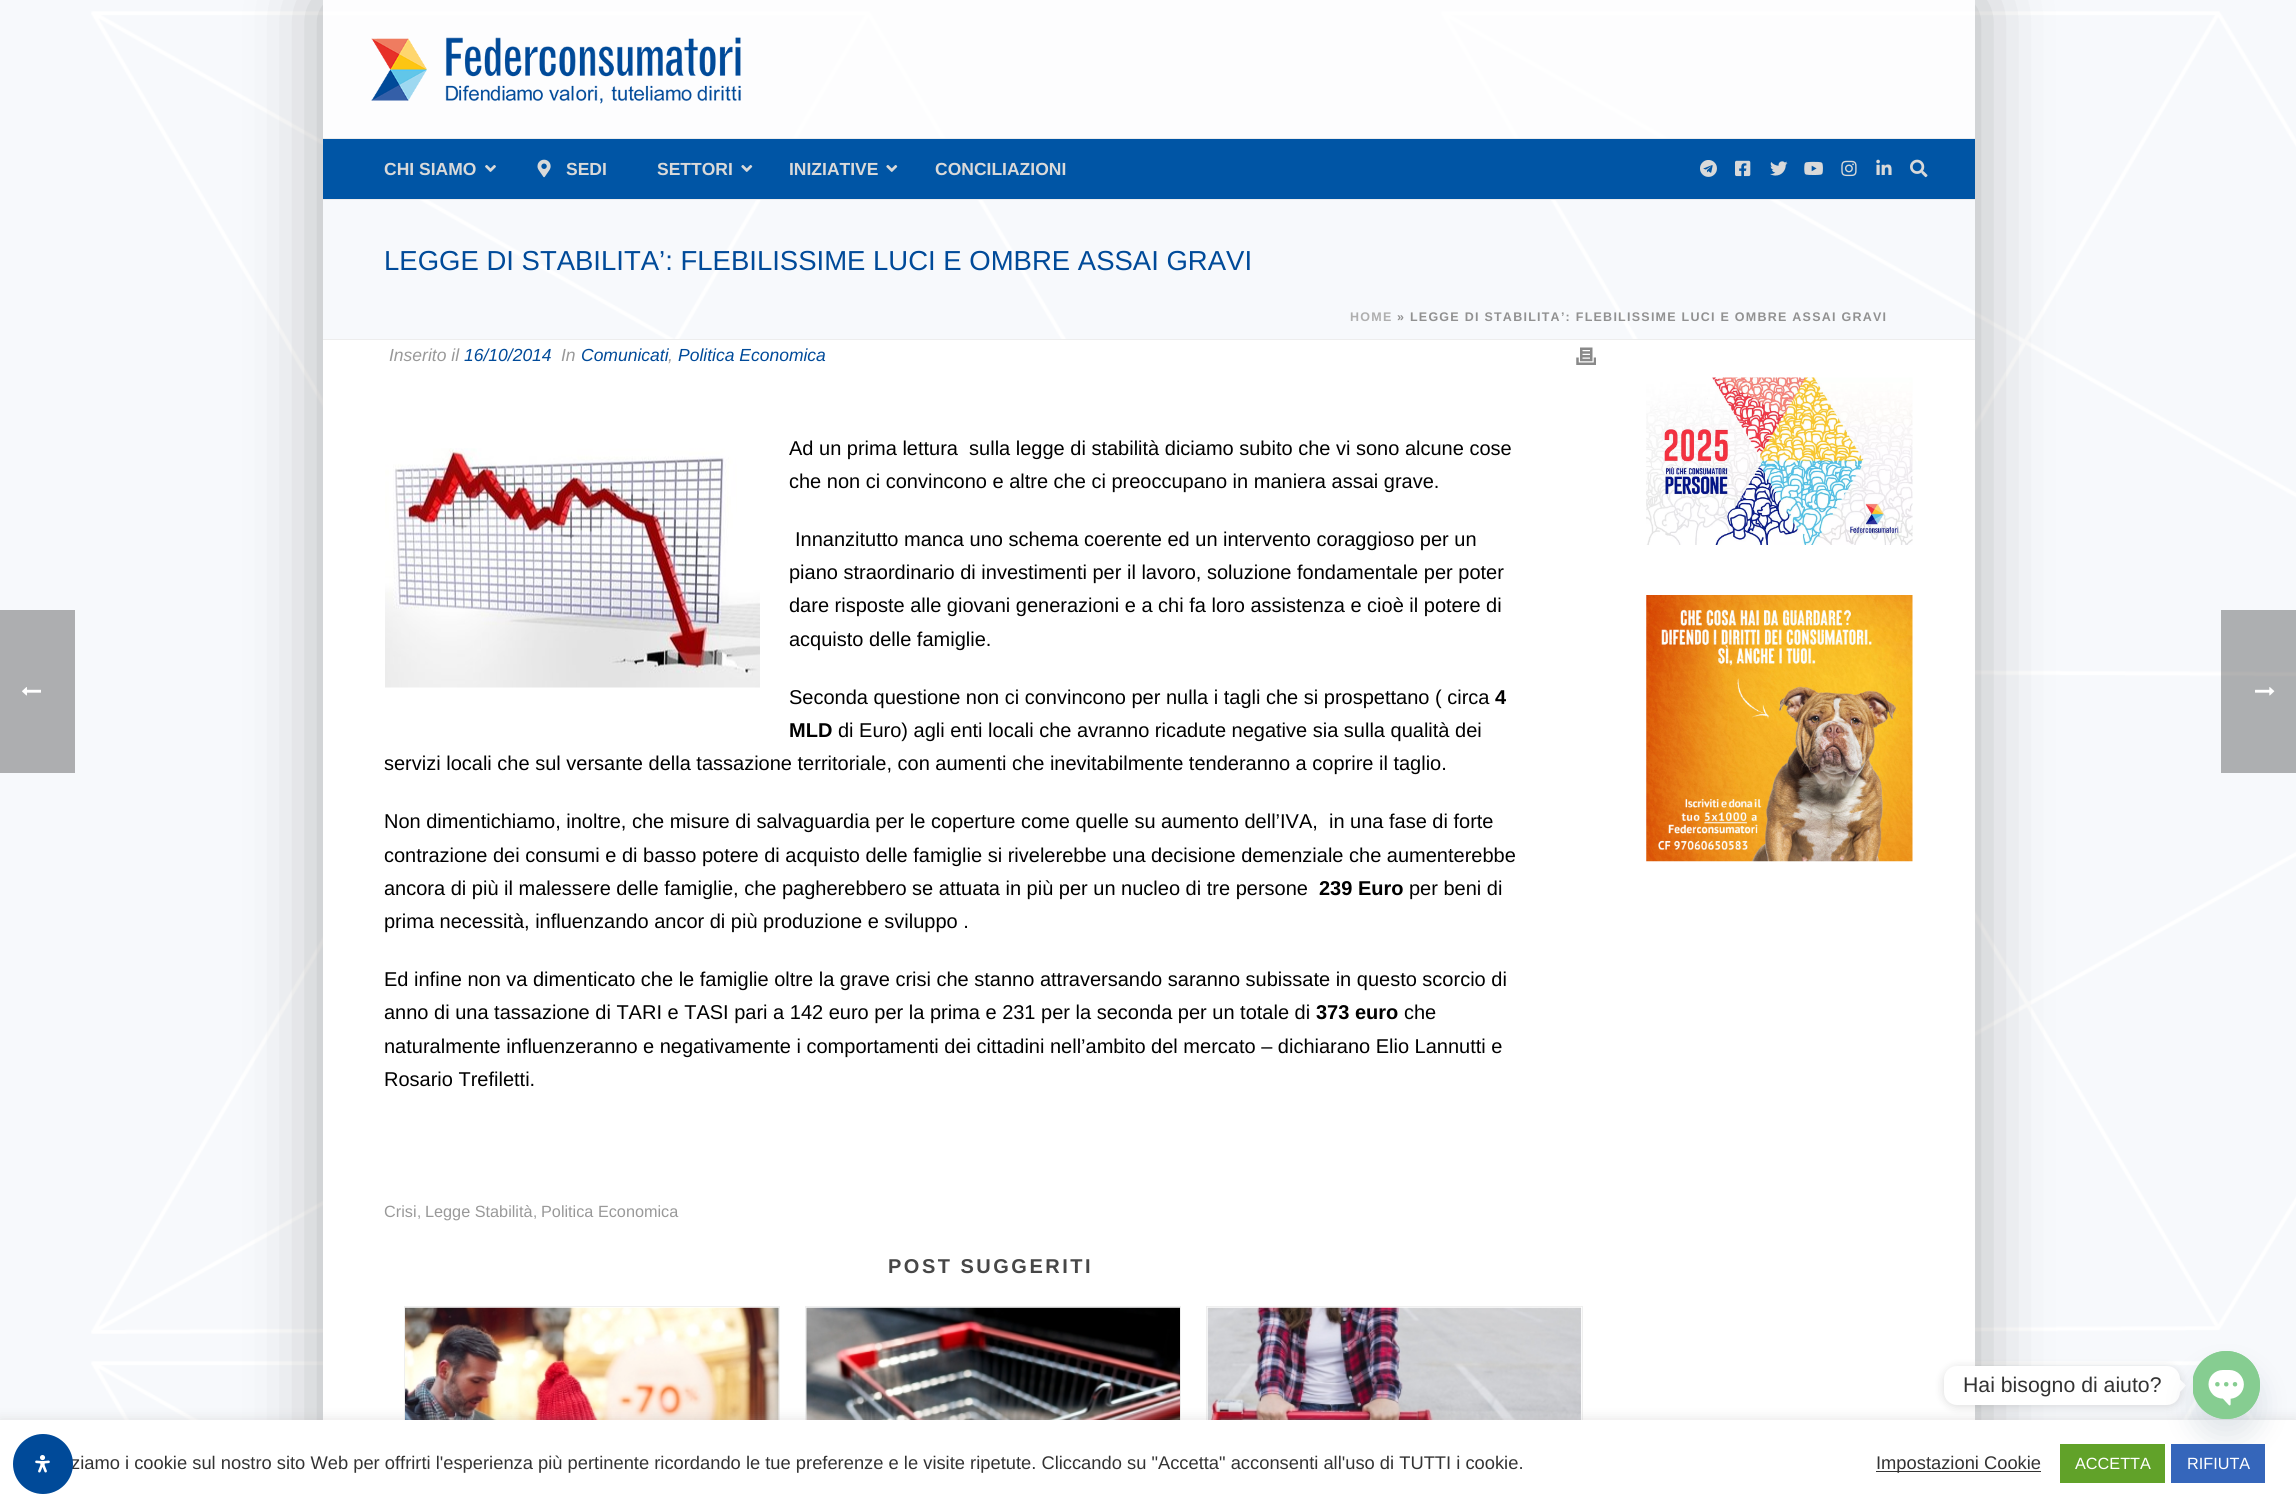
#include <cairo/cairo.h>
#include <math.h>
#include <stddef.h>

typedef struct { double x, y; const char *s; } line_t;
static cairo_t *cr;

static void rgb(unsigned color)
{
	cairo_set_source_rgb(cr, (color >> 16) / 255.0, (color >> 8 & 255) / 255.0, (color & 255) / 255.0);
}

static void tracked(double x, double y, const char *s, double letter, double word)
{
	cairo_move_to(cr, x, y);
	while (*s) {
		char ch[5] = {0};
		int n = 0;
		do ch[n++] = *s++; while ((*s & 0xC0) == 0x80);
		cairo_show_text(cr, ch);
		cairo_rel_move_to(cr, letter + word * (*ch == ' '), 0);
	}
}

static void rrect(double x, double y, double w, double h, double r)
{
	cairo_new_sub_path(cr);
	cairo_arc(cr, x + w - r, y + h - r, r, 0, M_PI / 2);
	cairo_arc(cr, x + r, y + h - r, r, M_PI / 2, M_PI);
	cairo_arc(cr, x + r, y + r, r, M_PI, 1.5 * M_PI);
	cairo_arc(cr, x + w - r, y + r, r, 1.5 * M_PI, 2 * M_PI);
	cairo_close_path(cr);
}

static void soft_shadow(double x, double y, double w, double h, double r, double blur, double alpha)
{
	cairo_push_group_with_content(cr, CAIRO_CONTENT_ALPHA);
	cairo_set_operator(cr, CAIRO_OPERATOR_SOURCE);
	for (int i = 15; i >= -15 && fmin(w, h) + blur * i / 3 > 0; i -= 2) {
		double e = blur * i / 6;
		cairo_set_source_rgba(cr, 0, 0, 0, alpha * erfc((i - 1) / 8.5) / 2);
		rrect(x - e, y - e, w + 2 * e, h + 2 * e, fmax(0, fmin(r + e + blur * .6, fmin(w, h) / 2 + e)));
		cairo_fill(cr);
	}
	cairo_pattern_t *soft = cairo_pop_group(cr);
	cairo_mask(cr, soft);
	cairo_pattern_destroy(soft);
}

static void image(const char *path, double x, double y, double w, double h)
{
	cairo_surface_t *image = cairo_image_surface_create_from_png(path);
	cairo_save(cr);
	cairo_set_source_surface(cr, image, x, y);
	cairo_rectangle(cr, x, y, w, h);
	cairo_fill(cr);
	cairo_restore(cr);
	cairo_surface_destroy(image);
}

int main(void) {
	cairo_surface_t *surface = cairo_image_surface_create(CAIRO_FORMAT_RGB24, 2296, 1506);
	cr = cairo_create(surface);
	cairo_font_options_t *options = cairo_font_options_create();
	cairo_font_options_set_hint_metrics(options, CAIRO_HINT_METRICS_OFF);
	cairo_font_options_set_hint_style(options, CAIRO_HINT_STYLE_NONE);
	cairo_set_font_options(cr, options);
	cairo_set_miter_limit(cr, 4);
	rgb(0xf7f9fc);
	cairo_paint(cr);
	image("img/1.png", 91, 11, 2205, 1409);
	rgb(0xadaeb0);
	cairo_rectangle(cr, 0, 610, 75, 163);
	cairo_fill(cr);
	image("img/2.png", 22, 687, 19, 9);
	cairo_save(cr);
	cairo_set_fill_rule(cr, CAIRO_FILL_RULE_EVEN_ODD);
	cairo_new_path(cr);
	cairo_move_to(cr, 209, 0);
	cairo_line_to(cr, 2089, 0);
	cairo_line_to(cr, 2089, 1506);
	cairo_line_to(cr, 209, 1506);
	cairo_close_path(cr);
	cairo_move_to(cr, 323, 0);
	cairo_line_to(cr, 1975, 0);
	cairo_line_to(cr, 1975, 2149);
	cairo_line_to(cr, 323, 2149);
	cairo_close_path(cr);
	cairo_clip(cr);
	rgb(0x000000);
	soft_shadow(323, 0, 1652, 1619, 0, 37.5, 0.3);
	cairo_restore(cr);
	rgb(0xededed);
	cairo_rectangle(cr, 323, 339, 1652, 1);
	cairo_fill(cr);
	cairo_rectangle(cr, 323, 199, 1652, 1);
	cairo_fill(cr);
	cairo_set_source_rgba(cr, 1, 1, 1, 0.7);
	cairo_rectangle(cr, 323, 0, 1652, 138);
	cairo_fill(cr);
	image("img/3.png", 371, 37, 370, 67);
	rgb(0x0055a5);
	cairo_rectangle(cr, 323, 139, 1652, 60);
	cairo_fill(cr);
	rgb(0xededed);
	cairo_rectangle(cr, 323, 138, 1652, 1);
	cairo_fill(cr);
	image("img/4.png", 485, 165, 11, 7);
	image("img/5.png", 537, 159, 14, 19);
	image("img/6.png", 741, 165, 12, 7);
	image("img/6.png", 886, 165, 12, 7);
	image("img/7.png", 1700, 160, 17, 17);
	image("img/8.png", 1735, 160, 16, 17);
	image("img/9.png", 1770, 161, 18, 15);
	image("img/10.png", 1804, 161, 19, 14);
	image("img/11.png", 1841, 160, 16, 17);
	image("img/12.png", 1876, 159, 16, 16);
	image("img/13.png", 1910, 159, 18, 19);
	rgb(0xffffff);
	cairo_rectangle(cr, 323, 340, 1652, 1080);
	cairo_fill(cr);
	image("img/14.png", 1576, 347, 20, 18);
	image("img/15.png", 385, 448, 375, 240);
	cairo_rectangle(cr, 404.5, 1306.5, 375, 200);
	rgb(0xefefef);
	cairo_set_line_width(cr, 1);
	cairo_stroke(cr);
	image("img/16.png", 405, 1307, 374, 113);
	cairo_rectangle(cr, 805.5, 1306.5, 375, 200);
	cairo_stroke(cr);
	image("img/17.png", 806, 1307, 374, 113);
	cairo_rectangle(cr, 1206.5, 1306.5, 376, 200);
	cairo_stroke(cr);
	image("img/18.png", 1207, 1307, 375, 113);
	image("img/19.png", 1646, 377, 267, 168);
	image("img/20.png", 1646, 595, 267, 267);
	cairo_set_source_rgba(cr, 0, 0, 0, 0.3);
	cairo_rectangle(cr, 2221, 610, 75, 163);
	cairo_fill(cr);
	image("img/21.png", 2255, 687, 20, 9);
	rgb(0xacabab);
	soft_shadow(0, 1419, 2296, 86, 0, 6, 0.3);
	rgb(0xffffff);
	cairo_rectangle(cr, 0, 1420, 2296, 86);
	cairo_fill(cr);
	rgb(0x000000);
	soft_shadow(1944, 1368, 236, 38, 13, 5, 0.15);
	rgb(0xffffff);
	rrect(1944, 1366, 236, 39, 13);
	cairo_fill(cr);
	cairo_new_path(cr);
	cairo_move_to(cr, 2180, 1392);
	cairo_line_to(cr, 2180, 1379.5);
	cairo_line_to(cr, 2186, 1385.5);
	cairo_close_path(cr);
	cairo_fill(cr);
	rgb(0x61a229);
	cairo_rectangle(cr, 2060, 1444, 105, 39);
	cairo_fill(cr);
	rgb(0x3566bb);
	cairo_rectangle(cr, 2171, 1444, 94, 39);
	cairo_fill(cr);
	rgb(0x49687e);
	soft_shadow(2193, 1371, 67, 68, 33.5, 15, 0.16);
	rgb(0x86cd91);
	rrect(2193, 1351, 67, 68, 33.5);
	cairo_fill(cr);
	image("img/22.png", 2193, 1351, 67, 68);
	rgb(0x333333);
	cairo_rectangle(cr, 1876, 1471, 165, 1);
	cairo_fill(cr);
	cairo_select_font_face(cr, "Liberation Sans", CAIRO_FONT_SLANT_NORMAL, CAIRO_FONT_WEIGHT_BOLD);
	cairo_set_font_size(cr, 17.5);
	rgb(0xd9d9d9);
	{
		static const line_t items[] = {
			{384, 175, "CHI SIAMO"},
			{566, 175, "SEDI"},
			{657, 175, "SETTORI"},
			{789, 175, "INIZIATIVE"},
			{935, 175, "CONCILIAZIONI"},
		};
		for (size_t i = 0; i < sizeof items / sizeof *items; i++) {
			cairo_move_to(cr, items[i].x, items[i].y);
			cairo_show_text(cr, items[i].s);
		}
	}
	cairo_select_font_face(cr, "Liberation Sans", CAIRO_FONT_SLANT_NORMAL, CAIRO_FONT_WEIGHT_NORMAL);
	cairo_set_font_size(cr, 27.5);
	rgb(0x004a99);
	cairo_move_to(cr, 384, 270);
	cairo_show_text(cr, "LEGGE DI STABILITA’: FLEBILISSIME LUCI E OMBRE ASSAI GRAVI");
	cairo_select_font_face(cr, "Liberation Sans", CAIRO_FONT_SLANT_NORMAL, CAIRO_FONT_WEIGHT_BOLD);
	cairo_set_font_size(cr, 12.5);
	rgb(0xafafaf);
	tracked(1350, 321, "HOME", 1.25, 0);
	rgb(0x919191);
	tracked(1397, 321, "» LEGGE DI STABILITA’: FLEBILISSIME LUCI E OMBRE ASSAI GRAVI", 1.25, 0);
	cairo_select_font_face(cr, "Liberation Sans", CAIRO_FONT_SLANT_ITALIC, CAIRO_FONT_WEIGHT_NORMAL);
	cairo_set_font_size(cr, 17.5);
	rgb(0x999999);
	cairo_move_to(cr, 389, 361);
	cairo_show_text(cr, "Inserito il");
	rgb(0x004a99);
	cairo_move_to(cr, 464, 361);
	cairo_show_text(cr, "16/10/2014");
	rgb(0x999999);
	cairo_move_to(cr, 561, 361);
	cairo_show_text(cr, "In");
	rgb(0x004a99);
	cairo_move_to(cr, 581, 361);
	cairo_show_text(cr, "Comunicati");
	rgb(0x999999);
	cairo_move_to(cr, 668, 361);
	cairo_show_text(cr, ",");
	rgb(0x004a99);
	cairo_move_to(cr, 678, 361);
	cairo_show_text(cr, "Politica Economica");
	cairo_select_font_face(cr, "Liberation Sans", CAIRO_FONT_SLANT_NORMAL, CAIRO_FONT_WEIGHT_NORMAL);
	cairo_set_font_size(cr, 20);
	rgb(0x000000);
	{
		static const line_t items[] = {
			{789, 455, "Ad un prima lettura  sulla legge di stabilità diciamo subito che vi sono alcune cose"},
			{789, 488, "che non ci convincono e altre che ci preoccupano in maniera assai grave."},
			{795, 546, "Innanzitutto manca uno schema coerente ed un intervento coraggioso per un"},
			{789, 579, "piano straordinario di investimenti per il lavoro, soluzione fondamentale per poter"},
			{789, 612, "dare risposte alle giovani generazioni e a chi fa loro assistenza e cioè il potere di"},
			{789, 646, "acquisto delle famiglie."},
			{789, 704, "Seconda questione non ci convincono per nulla i tagli che si prospettano ( circa"},
		};
		for (size_t i = 0; i < sizeof items / sizeof *items; i++) {
			cairo_move_to(cr, items[i].x, items[i].y);
			cairo_show_text(cr, items[i].s);
		}
	}
	cairo_select_font_face(cr, "Liberation Sans", CAIRO_FONT_SLANT_NORMAL, CAIRO_FONT_WEIGHT_BOLD);
	cairo_move_to(cr, 1495, 704);
	cairo_show_text(cr, "4");
	cairo_move_to(cr, 789, 737);
	cairo_show_text(cr, "MLD");
	cairo_select_font_face(cr, "Liberation Sans", CAIRO_FONT_SLANT_NORMAL, CAIRO_FONT_WEIGHT_NORMAL);
	{
		static const line_t items[] = {
			{838, 737, "di Euro) agli enti locali che avranno ricadute negative sia sulla qualità dei"},
			{384, 770, "servizi locali che sul versante della tassazione territoriale, con aumenti che inevitabilmente tenderanno a coprire il taglio."},
			{384, 828, "Non dimentichiamo, inoltre, che misure di salvaguardia per le coperture come quelle su aumento dell’IVA,  in una fase di forte"},
			{384, 862, "contrazione dei consumi e di basso potere di acquisto delle famiglie si rivelerebbe una decisione demenziale che aumenterebbe"},
			{384, 895, "ancora di più il malessere delle famiglie, che pagherebbero se attuata in più per un nucleo di tre persone"},
		};
		for (size_t i = 0; i < sizeof items / sizeof *items; i++) {
			cairo_move_to(cr, items[i].x, items[i].y);
			cairo_show_text(cr, items[i].s);
		}
	}
	cairo_select_font_face(cr, "Liberation Sans", CAIRO_FONT_SLANT_NORMAL, CAIRO_FONT_WEIGHT_BOLD);
	cairo_move_to(cr, 1319, 895);
	cairo_show_text(cr, "239 Euro");
	cairo_select_font_face(cr, "Liberation Sans", CAIRO_FONT_SLANT_NORMAL, CAIRO_FONT_WEIGHT_NORMAL);
	{
		static const line_t items[] = {
			{1409, 895, "per beni di"},
			{384, 928, "prima necessità, influenzando ancor di più produzione e sviluppo ."},
			{384, 986, "Ed infine non va dimenticato che le famiglie oltre la grave crisi che stanno attraversando saranno subissate in questo scorcio di"},
			{384, 1019, "anno di una tassazione di TARI e TASI pari a 142 euro per la prima e 231 per la seconda per un totale di"},
		};
		for (size_t i = 0; i < sizeof items / sizeof *items; i++) {
			cairo_move_to(cr, items[i].x, items[i].y);
			cairo_show_text(cr, items[i].s);
		}
	}
	cairo_select_font_face(cr, "Liberation Sans", CAIRO_FONT_SLANT_NORMAL, CAIRO_FONT_WEIGHT_BOLD);
	cairo_move_to(cr, 1316, 1019);
	cairo_show_text(cr, "373 euro");
	cairo_select_font_face(cr, "Liberation Sans", CAIRO_FONT_SLANT_NORMAL, CAIRO_FONT_WEIGHT_NORMAL);
	{
		static const line_t items[] = {
			{1404, 1019, "che"},
			{384, 1053, "naturalmente influenzeranno e negativamente i comportamenti dei cittadini nell’ambito del mercato – dichiarano Elio Lannutti e"},
			{384, 1086, "Rosario Trefiletti."},
		};
		for (size_t i = 0; i < sizeof items / sizeof *items; i++) {
			cairo_move_to(cr, items[i].x, items[i].y);
			cairo_show_text(cr, items[i].s);
		}
	}
	cairo_set_font_size(cr, 16.25);
	rgb(0x999999);
	cairo_move_to(cr, 384, 1217);
	cairo_show_text(cr, "Crisi");
	cairo_set_font_size(cr, 15);
	cairo_move_to(cr, 417, 1217);
	cairo_show_text(cr, ",");
	cairo_set_font_size(cr, 16.25);
	cairo_move_to(cr, 425, 1217);
	cairo_show_text(cr, "Legge Stabilità");
	cairo_set_font_size(cr, 15);
	cairo_move_to(cr, 533, 1217);
	cairo_show_text(cr, ",");
	cairo_set_font_size(cr, 16.25);
	cairo_move_to(cr, 541, 1217);
	cairo_show_text(cr, "Politica Economica");
	cairo_select_font_face(cr, "Liberation Sans", CAIRO_FONT_SLANT_NORMAL, CAIRO_FONT_WEIGHT_BOLD);
	cairo_set_font_size(cr, 20);
	rgb(0x474747);
	tracked(888, 1273, "POST SUGGERITI", 2.5, 0);
	cairo_select_font_face(cr, "Liberation Sans", CAIRO_FONT_SLANT_NORMAL, CAIRO_FONT_WEIGHT_NORMAL);
	cairo_set_font_size(cr, 21.25);
	rgb(0x333333);
	cairo_move_to(cr, 1963, 1392);
	cairo_show_text(cr, "Hai bisogno di aiuto?");
	cairo_set_font_size(cr, 18.33);
	cairo_move_to(cr, 71, 1469);
	cairo_show_text(cr, "ziamo i cookie sul nostro sito Web per offrirti l'esperienza più pertinente ricordando le tue preferenze e le visite ripetute. Cliccando su \"Accetta\" acconsenti all'uso di TUTTI i cookie.");
	rgb(0x004a99);
	cairo_new_path(cr);
	cairo_arc(cr, 43, 1464, 30, 0, 2 * M_PI);
	cairo_fill(cr);
	image("img/23.png", 35, 1455, 15, 18);
	rgb(0x333333);
	cairo_move_to(cr, 1876, 1469);
	cairo_show_text(cr, "Impostazioni Cookie");
	cairo_set_font_size(cr, 16.25);
	rgb(0xffffff);
	cairo_move_to(cr, 2075, 1469);
	cairo_show_text(cr, "ACCETTA");
	cairo_move_to(cr, 2187, 1469);
	cairo_show_text(cr, "RIFIUTA");
	cairo_surface_write_to_png(surface, "page.png");
	cairo_font_options_destroy(options);
	cairo_destroy(cr);
	cairo_surface_destroy(surface);
	return 0;
}
